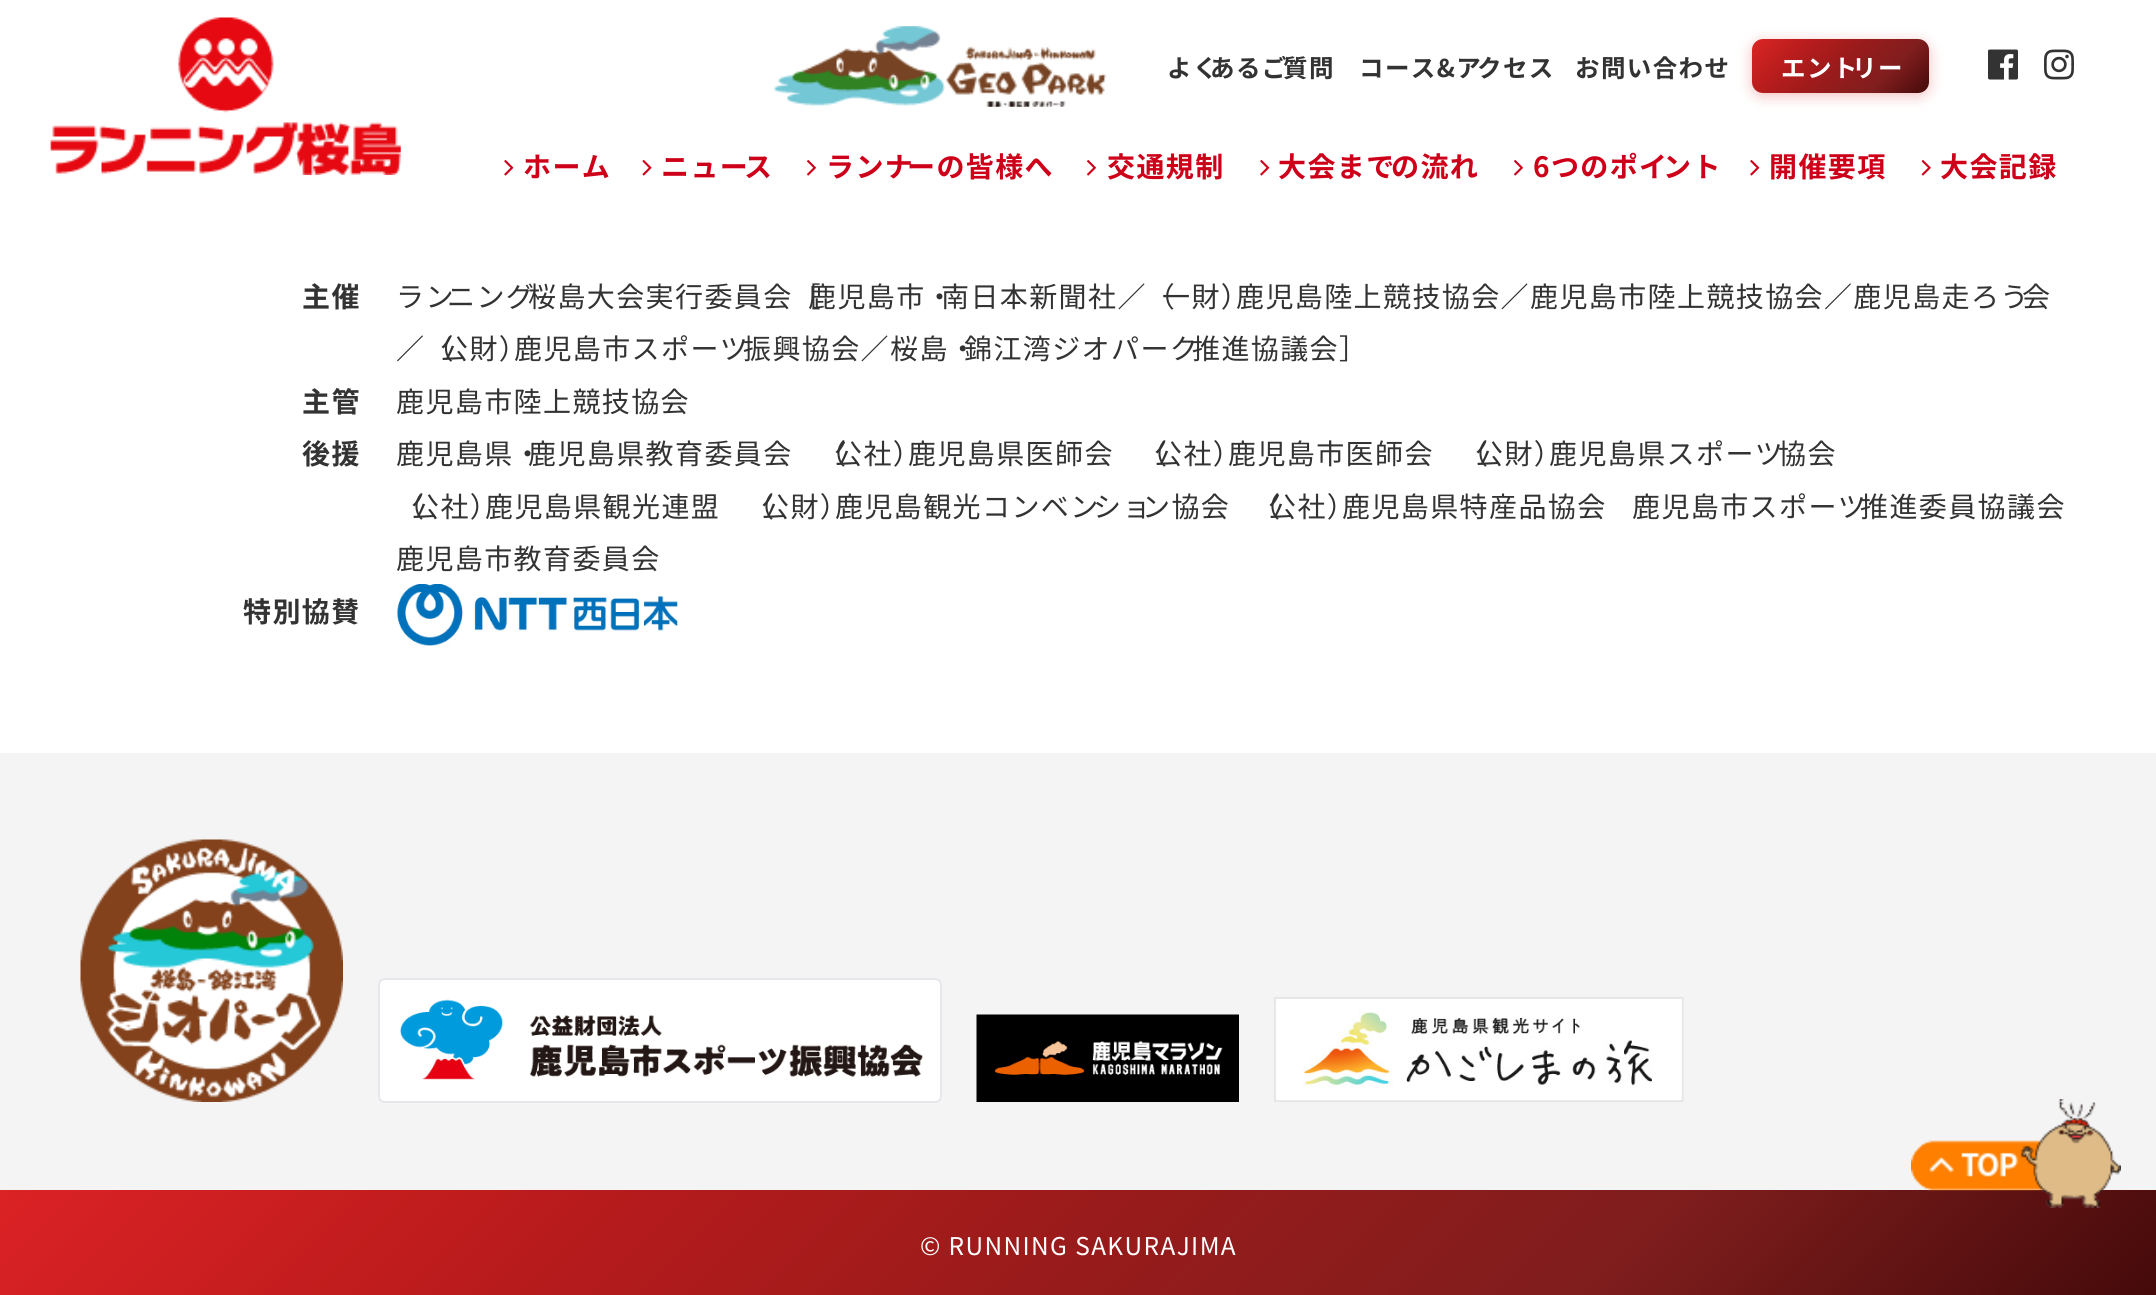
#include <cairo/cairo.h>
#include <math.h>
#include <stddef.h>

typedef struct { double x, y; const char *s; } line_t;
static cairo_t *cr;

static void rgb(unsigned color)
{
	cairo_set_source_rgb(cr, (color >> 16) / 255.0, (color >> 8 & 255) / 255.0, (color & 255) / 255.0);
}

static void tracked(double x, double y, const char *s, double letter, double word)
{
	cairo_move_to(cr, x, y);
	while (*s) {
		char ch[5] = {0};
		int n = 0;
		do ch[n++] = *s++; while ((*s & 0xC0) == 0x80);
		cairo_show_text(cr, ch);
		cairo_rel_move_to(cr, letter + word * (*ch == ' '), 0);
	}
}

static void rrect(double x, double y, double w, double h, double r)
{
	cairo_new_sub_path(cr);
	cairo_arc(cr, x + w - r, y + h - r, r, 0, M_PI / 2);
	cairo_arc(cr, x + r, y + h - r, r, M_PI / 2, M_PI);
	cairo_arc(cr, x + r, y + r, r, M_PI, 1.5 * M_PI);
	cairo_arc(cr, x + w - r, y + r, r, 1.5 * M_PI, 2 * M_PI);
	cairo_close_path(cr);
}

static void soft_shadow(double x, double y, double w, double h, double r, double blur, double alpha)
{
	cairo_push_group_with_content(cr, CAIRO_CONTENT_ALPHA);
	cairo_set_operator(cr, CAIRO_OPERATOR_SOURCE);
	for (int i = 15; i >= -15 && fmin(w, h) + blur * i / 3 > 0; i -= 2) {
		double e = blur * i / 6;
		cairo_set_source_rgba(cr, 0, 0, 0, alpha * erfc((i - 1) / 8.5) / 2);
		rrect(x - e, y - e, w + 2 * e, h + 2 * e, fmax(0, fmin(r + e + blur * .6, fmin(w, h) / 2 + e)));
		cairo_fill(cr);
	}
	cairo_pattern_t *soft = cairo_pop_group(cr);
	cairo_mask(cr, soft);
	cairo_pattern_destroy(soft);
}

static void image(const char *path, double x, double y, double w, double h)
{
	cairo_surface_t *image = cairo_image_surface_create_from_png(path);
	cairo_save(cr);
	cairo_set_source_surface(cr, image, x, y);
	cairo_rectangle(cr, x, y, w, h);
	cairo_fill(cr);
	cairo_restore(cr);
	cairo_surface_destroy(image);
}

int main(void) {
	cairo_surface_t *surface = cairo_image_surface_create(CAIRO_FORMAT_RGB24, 2156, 1295);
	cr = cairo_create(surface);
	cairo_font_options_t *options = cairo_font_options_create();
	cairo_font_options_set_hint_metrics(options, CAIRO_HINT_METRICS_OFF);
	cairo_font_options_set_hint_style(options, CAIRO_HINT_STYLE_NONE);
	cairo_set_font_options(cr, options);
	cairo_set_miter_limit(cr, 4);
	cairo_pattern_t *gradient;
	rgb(0xffffff);
	cairo_paint(cr);
	image("img/1.png", 50, 17, 351, 158);
	image("img/2.png", 773, 26, 334, 81);
	rgb(0xdc2626);
	soft_shadow(1752, 42, 177, 54, 11, 7, 0.3);
	gradient = cairo_pattern_create_linear(1782, 7.9, 1898, 123);
	cairo_pattern_add_color_stop_rgba(gradient, 0, 0.863, 0.149, 0.149, 1);
	cairo_pattern_add_color_stop_rgba(gradient, 0.25, 0.725, 0.11, 0.11, 1);
	cairo_pattern_add_color_stop_rgba(gradient, 0.5, 0.6, 0.106, 0.106, 1);
	cairo_pattern_add_color_stop_rgba(gradient, 0.75, 0.498, 0.114, 0.114, 1);
	cairo_pattern_add_color_stop_rgba(gradient, 1, 0.271, 0.039, 0.039, 1);
	cairo_set_source(cr, gradient);
	cairo_pattern_destroy(gradient);
	rrect(1752, 39, 177, 54, 11);
	cairo_fill(cr);
	image("img/3.png", 1988, 49, 30, 31);
	image("img/4.png", 2044, 49, 30, 31);
	image("img/5.png", 504, 160, 10, 16);
	image("img/6.png", 642, 160, 10, 16);
	image("img/7.png", 807, 160, 9, 16);
	image("img/7.png", 1087, 160, 9, 16);
	image("img/5.png", 1260, 160, 10, 16);
	image("img/7.png", 1514, 160, 9, 16);
	image("img/5.png", 1750, 160, 10, 16);
	image("img/8.png", 1921, 160, 10, 16);
	image("img/9.png", 397, 584, 281, 62);
	rgb(0xf4f4f4);
	cairo_rectangle(cr, 0, 753, 2156, 437);
	cairo_fill(cr);
	image("img/10.png", 80, 839, 263, 263);
	rgb(0xffffff);
	rrect(379, 979, 562, 123, 6);
	cairo_fill_preserve(cr);
	rgb(0xe5e7eb);
	cairo_stroke(cr);
	image("img/11.png", 400, 999, 523, 81);
	image("img/12.png", 976, 1014, 263, 88);
	image("img/13.png", 1274, 997, 410, 105);
	gradient = cairo_pattern_create_linear(513, 677, 1643, 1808);
	cairo_pattern_add_color_stop_rgba(gradient, 0, 0.859, 0.133, 0.145, 1);
	cairo_pattern_add_color_stop_rgba(gradient, 0.25, 0.729, 0.106, 0.11, 1);
	cairo_pattern_add_color_stop_rgba(gradient, 0.5, 0.6, 0.106, 0.106, 1);
	cairo_pattern_add_color_stop_rgba(gradient, 0.75, 0.498, 0.114, 0.114, 1);
	cairo_pattern_add_color_stop_rgba(gradient, 1, 0.271, 0.039, 0.039, 1);
	cairo_set_source(cr, gradient);
	cairo_pattern_destroy(gradient);
	cairo_rectangle(cr, 0, 1190, 2156, 105);
	cairo_fill(cr);
	image("img/14.png", 1911, 1099, 210, 109);
	cairo_select_font_face(cr, "Noto Sans JP", CAIRO_FONT_SLANT_NORMAL, CAIRO_FONT_WEIGHT_BOLD);
	cairo_set_font_size(cr, 24.5);
	rgb(0x333333);
	{
		static const line_t items[] = {
			{1167, 77, "よく"},
			{1210, 77, "あるご"},
			{1283, 77, "質問"},
			{1359, 77, "コース&ア"},
			{1477, 77, "クセス"},
			{1575, 77, "お問い合わせ"},
		};
		for (size_t i = 0; i < sizeof items / sizeof *items; i++) {
			tracked(items[i].x, items[i].y, items[i].s, 1.4, 0);
		}
	}
	rgb(0xffffff);
	tracked(1781, 77, "エント", 1.4, 0);
	tracked(1852, 77, "リー", 1.4, 0);
	cairo_set_font_size(cr, 28);
	rgb(0xce0019);
	{
		static const line_t items[] = {
			{523, 177, "ホーム"},
			{661, 177, "ニュー"},
			{744, 177, "ス"},
			{826, 177, "ランナ"},
			{907, 177, "ーの皆様へ"},
			{1107, 177, "交通規制"},
			{1278, 177, "大会まで"},
			{1391, 177, "の流れ"},
			{1533, 177, "6つのポイ"},
			{1663, 177, "ント"},
			{1769, 177, "開催要項"},
			{1940, 177, "大会記録"},
		};
		for (size_t i = 0; i < sizeof items / sizeof *items; i++) {
			tracked(items[i].x, items[i].y, items[i].s, 1.4, 0);
		}
	}
	rgb(0x333333);
	tracked(302, 307, "主催", 1.4, 0);
	cairo_select_font_face(cr, "Noto Sans JP", CAIRO_FONT_SLANT_NORMAL, CAIRO_FONT_WEIGHT_NORMAL);
	tracked(396, 307, "ラン", 1.4, 0);
	tracked(447, 307, "ニング", 1.4, 0);
	tracked(528, 307, "桜島大会実行委員会［", 1.4, 0);
	tracked(808, 307, "鹿児島市・", 1.4, 0);
	tracked(941, 307, "南日本新聞社／（", 1.4, 0);
	tracked(1162, 307, "一財）", 1.4, 0);
	tracked(1236, 307, "鹿児島陸上競技協会／鹿児島市陸上競技協会／鹿児島走ろう", 1.4, 0);
	tracked(2022, 307, "会", 1.4, 0);
	tracked(396, 359, "／（", 1.4, 0);
	tracked(440, 359, "公財）", 1.4, 0);
	tracked(514, 359, "鹿児島市スポーツ", 1.4, 0);
	tracked(743, 359, "振興協会／桜島・", 1.4, 0);
	tracked(964, 359, "錦江湾ジオパーク", 1.4, 0);
	tracked(1192, 359, "推進協議会］", 1.4, 0);
	cairo_select_font_face(cr, "Noto Sans JP", CAIRO_FONT_SLANT_NORMAL, CAIRO_FONT_WEIGHT_BOLD);
	tracked(302, 412, "主管", 1.4, 0);
	cairo_select_font_face(cr, "Noto Sans JP", CAIRO_FONT_SLANT_NORMAL, CAIRO_FONT_WEIGHT_NORMAL);
	tracked(396, 412, "鹿児島市陸上競技協会", 1.4, 0);
	cairo_select_font_face(cr, "Noto Sans JP", CAIRO_FONT_SLANT_NORMAL, CAIRO_FONT_WEIGHT_BOLD);
	tracked(302, 464, "後援", 1.4, 0);
	cairo_select_font_face(cr, "Noto Sans JP", CAIRO_FONT_SLANT_NORMAL, CAIRO_FONT_WEIGHT_NORMAL);
	{
		static const line_t items[] = {
			{396, 464, "鹿児島県・"},
			{528, 464, "鹿児島県教育委員会"},
			{818, 464, "（"},
			{834, 464, "公社）"},
			{908, 464, "鹿児島県医師会"},
			{1139, 464, "（"},
			{1154, 464, "公社）"},
			{1228, 464, "鹿児島市医師会"},
			{1460, 464, "（"},
			{1475, 464, "公財）"},
			{1549, 464, "鹿児島県スポーツ"},
			{1778, 464, "協会"},
			{396, 517, "（"},
			{411, 517, "公社）"},
			{485, 517, "鹿児島県観光連盟"},
			{746, 517, "（"},
			{761, 517, "公財）"},
			{835, 517, "鹿児島観光コンベン"},
			{1093, 517, "ショ"},
			{1142, 517, "ン協会"},
			{1252, 517, "（"},
			{1268, 517, "公社）"},
			{1342, 517, "鹿児島県特産品協会"},
			{1632, 517, "鹿児島市スポーツ"},
			{1860, 517, "推進委員協議会"},
			{396, 569, "鹿児島市教育委員会"},
		};
		for (size_t i = 0; i < sizeof items / sizeof *items; i++) {
			tracked(items[i].x, items[i].y, items[i].s, 1.4, 0);
		}
	}
	cairo_select_font_face(cr, "Noto Sans JP", CAIRO_FONT_SLANT_NORMAL, CAIRO_FONT_WEIGHT_BOLD);
	tracked(243, 622, "特別協賛", 1.4, 0);
	cairo_select_font_face(cr, "Noto Sans JP", CAIRO_FONT_SLANT_NORMAL, CAIRO_FONT_WEIGHT_NORMAL);
	cairo_set_font_size(cr, 24.4);
	rgb(0xffffff);
	tracked(920, 1255, "© RUNNING SAKURAJIMA", 1.4, 0);
	cairo_surface_write_to_png(surface, "page.png");
	cairo_font_options_destroy(options);
	cairo_destroy(cr);
	cairo_surface_destroy(surface);
	return 0;
}
